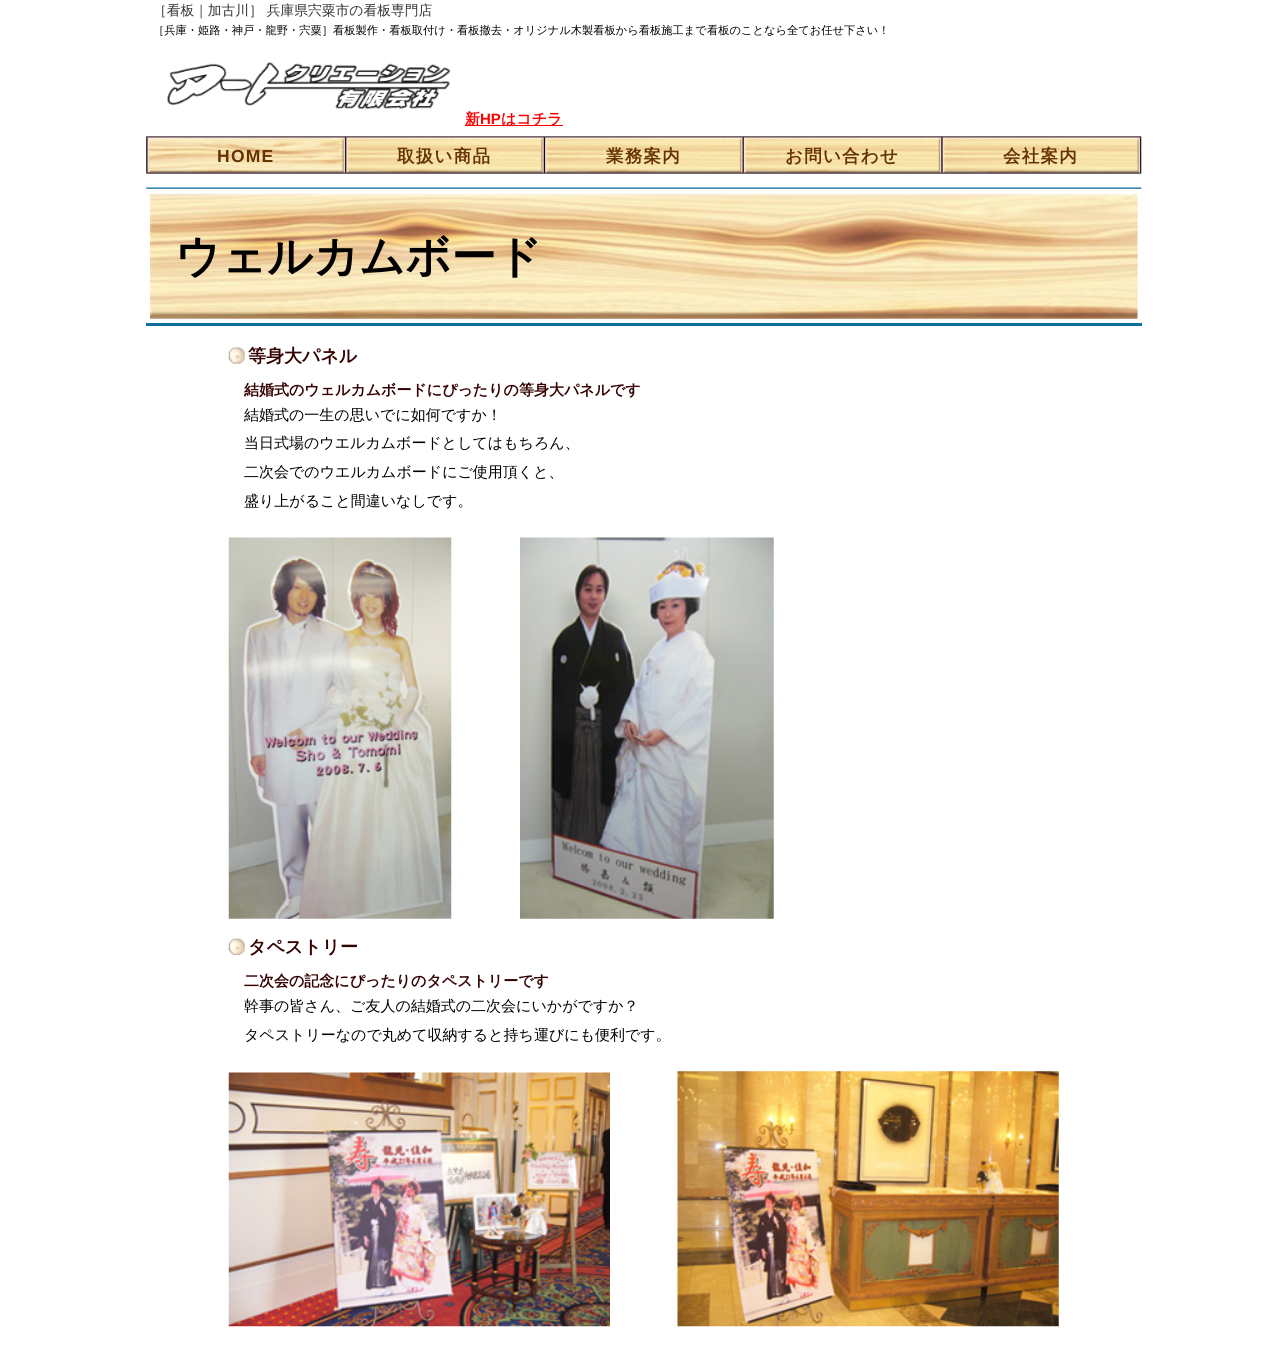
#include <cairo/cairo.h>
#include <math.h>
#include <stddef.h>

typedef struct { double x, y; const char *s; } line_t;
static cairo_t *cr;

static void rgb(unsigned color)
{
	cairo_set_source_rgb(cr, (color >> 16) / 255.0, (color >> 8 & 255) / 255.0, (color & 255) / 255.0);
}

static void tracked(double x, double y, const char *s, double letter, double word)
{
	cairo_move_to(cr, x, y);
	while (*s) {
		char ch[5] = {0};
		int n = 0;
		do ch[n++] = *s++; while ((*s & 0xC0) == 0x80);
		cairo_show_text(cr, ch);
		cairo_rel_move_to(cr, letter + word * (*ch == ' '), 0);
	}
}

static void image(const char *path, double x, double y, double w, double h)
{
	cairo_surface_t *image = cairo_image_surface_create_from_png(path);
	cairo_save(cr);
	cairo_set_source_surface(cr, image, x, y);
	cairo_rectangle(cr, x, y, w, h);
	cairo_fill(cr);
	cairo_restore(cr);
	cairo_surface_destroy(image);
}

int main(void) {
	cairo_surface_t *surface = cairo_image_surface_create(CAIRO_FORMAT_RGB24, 1287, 1345);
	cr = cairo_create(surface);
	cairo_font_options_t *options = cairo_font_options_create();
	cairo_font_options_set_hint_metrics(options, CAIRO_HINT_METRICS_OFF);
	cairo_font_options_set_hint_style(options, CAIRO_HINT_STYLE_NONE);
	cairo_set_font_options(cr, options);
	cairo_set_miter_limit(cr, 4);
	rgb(0xffffff);
	cairo_paint(cr);
	image("img/1.png", 167, 62, 284, 48);
	rgb(0xff0000);
	cairo_rectangle(cr, 465, 125, 98, 1);
	cairo_fill(cr);
	image("img/2.png", 146, 136, 996, 38);
	image("img/3.png", 146, 187, 996, 2);
	image("img/4.png", 150, 193, 988, 126);
	rgb(0x0f6f9f);
	cairo_rectangle(cr, 146, 323, 996, 3);
	cairo_fill(cr);
	image("img/5.png", 228, 347, 17, 17);
	image("img/6.png", 228, 537, 224, 382);
	image("img/7.png", 520, 537, 254, 382);
	image("img/8.png", 228, 938, 17, 17);
	image("img/9.png", 228, 1072, 382, 255);
	image("img/10.png", 677, 1071, 382, 256);
	cairo_select_font_face(cr, "WenQuanYi Zen Hei Medium", CAIRO_FONT_SLANT_NORMAL, CAIRO_FONT_WEIGHT_NORMAL);
	cairo_set_font_size(cr, 13.75);
	rgb(0x333333);
	cairo_move_to(cr, 153, 15);
	cairo_show_text(cr, "［看板｜加古川］ 兵庫県宍粟市の看板専門店");
	cairo_set_font_size(cr, 11.25);
	rgb(0x000000);
	cairo_move_to(cr, 153, 34);
	cairo_show_text(cr, "［兵庫・姫路・神戸・龍野・宍粟］看板製作・看板取付け・看板撤去・オリジナル木製看板から看板施工まで看板のことなら全てお任せ下さい！");
	cairo_select_font_face(cr, "WenQuanYi Zen Hei", CAIRO_FONT_SLANT_NORMAL, CAIRO_FONT_WEIGHT_BOLD);
	cairo_set_font_size(cr, 15);
	rgb(0xff0000);
	cairo_move_to(cr, 465, 124);
	cairo_show_text(cr, "新");
	cairo_select_font_face(cr, "Liberation Sans", CAIRO_FONT_SLANT_NORMAL, CAIRO_FONT_WEIGHT_BOLD);
	cairo_move_to(cr, 480, 124);
	cairo_show_text(cr, "HP");
	cairo_select_font_face(cr, "WenQuanYi Zen Hei", CAIRO_FONT_SLANT_NORMAL, CAIRO_FONT_WEIGHT_BOLD);
	cairo_move_to(cr, 501, 124);
	cairo_show_text(cr, "はコチラ");
	cairo_select_font_face(cr, "Liberation Sans", CAIRO_FONT_SLANT_NORMAL, CAIRO_FONT_WEIGHT_BOLD);
	cairo_set_font_size(cr, 17.5);
	rgb(0x663300);
	tracked(217, 162, "HOME", 1.25, 0);
	cairo_select_font_face(cr, "WenQuanYi Zen Hei", CAIRO_FONT_SLANT_NORMAL, CAIRO_FONT_WEIGHT_BOLD);
	{
		static const line_t items[] = {
			{397, 162, "取扱い商品"},
			{606, 162, "業務案内"},
			{785, 162, "お問い合わせ"},
			{1003, 162, "会社案内"},
		};
		for (size_t i = 0; i < sizeof items / sizeof *items; i++) {
			tracked(items[i].x, items[i].y, items[i].s, 1.25, 0);
		}
	}
	cairo_set_font_size(cr, 45);
	rgb(0x000000);
	cairo_move_to(cr, 175, 272);
	cairo_show_text(cr, "ウェルカムボード");
	cairo_set_font_size(cr, 18);
	rgb(0x330000);
	cairo_move_to(cr, 248, 362);
	cairo_show_text(cr, "等身大パネル");
	cairo_set_font_size(cr, 15);
	cairo_move_to(cr, 244, 395);
	cairo_show_text(cr, "結婚式のウェルカムボードにぴったりの等身大パネルです");
	cairo_select_font_face(cr, "WenQuanYi Zen Hei Medium", CAIRO_FONT_SLANT_NORMAL, CAIRO_FONT_WEIGHT_NORMAL);
	rgb(0x000000);
	{
		static const line_t items[] = {
			{244, 420, "結婚式の一生の思いでに如何ですか！"},
			{244, 448, "当日式場のウエルカムボードとしてはもちろん、"},
			{244, 477, "二次会でのウエルカムボードにご使用頂くと、"},
			{244, 506, "盛り上がること間違いなしです。"},
		};
		for (size_t i = 0; i < sizeof items / sizeof *items; i++) {
			cairo_move_to(cr, items[i].x, items[i].y);
			cairo_show_text(cr, items[i].s);
		}
	}
	cairo_select_font_face(cr, "WenQuanYi Zen Hei", CAIRO_FONT_SLANT_NORMAL, CAIRO_FONT_WEIGHT_BOLD);
	cairo_set_font_size(cr, 18);
	rgb(0x330000);
	cairo_move_to(cr, 248, 953);
	cairo_show_text(cr, "タペストリー");
	cairo_set_font_size(cr, 15);
	cairo_move_to(cr, 244, 986);
	cairo_show_text(cr, "二次会の記念にぴったりのタペストリーです");
	cairo_select_font_face(cr, "WenQuanYi Zen Hei Medium", CAIRO_FONT_SLANT_NORMAL, CAIRO_FONT_WEIGHT_NORMAL);
	rgb(0x000000);
	cairo_move_to(cr, 244, 1011);
	cairo_show_text(cr, "幹事の皆さん、ご友人の結婚式の二次会にいかがですか？");
	cairo_move_to(cr, 244, 1040);
	cairo_show_text(cr, "タペストリーなので丸めて収納すると持ち運びにも便利です。");
	cairo_surface_write_to_png(surface, "page.png");
	cairo_font_options_destroy(options);
	cairo_destroy(cr);
	cairo_surface_destroy(surface);
	return 0;
}
